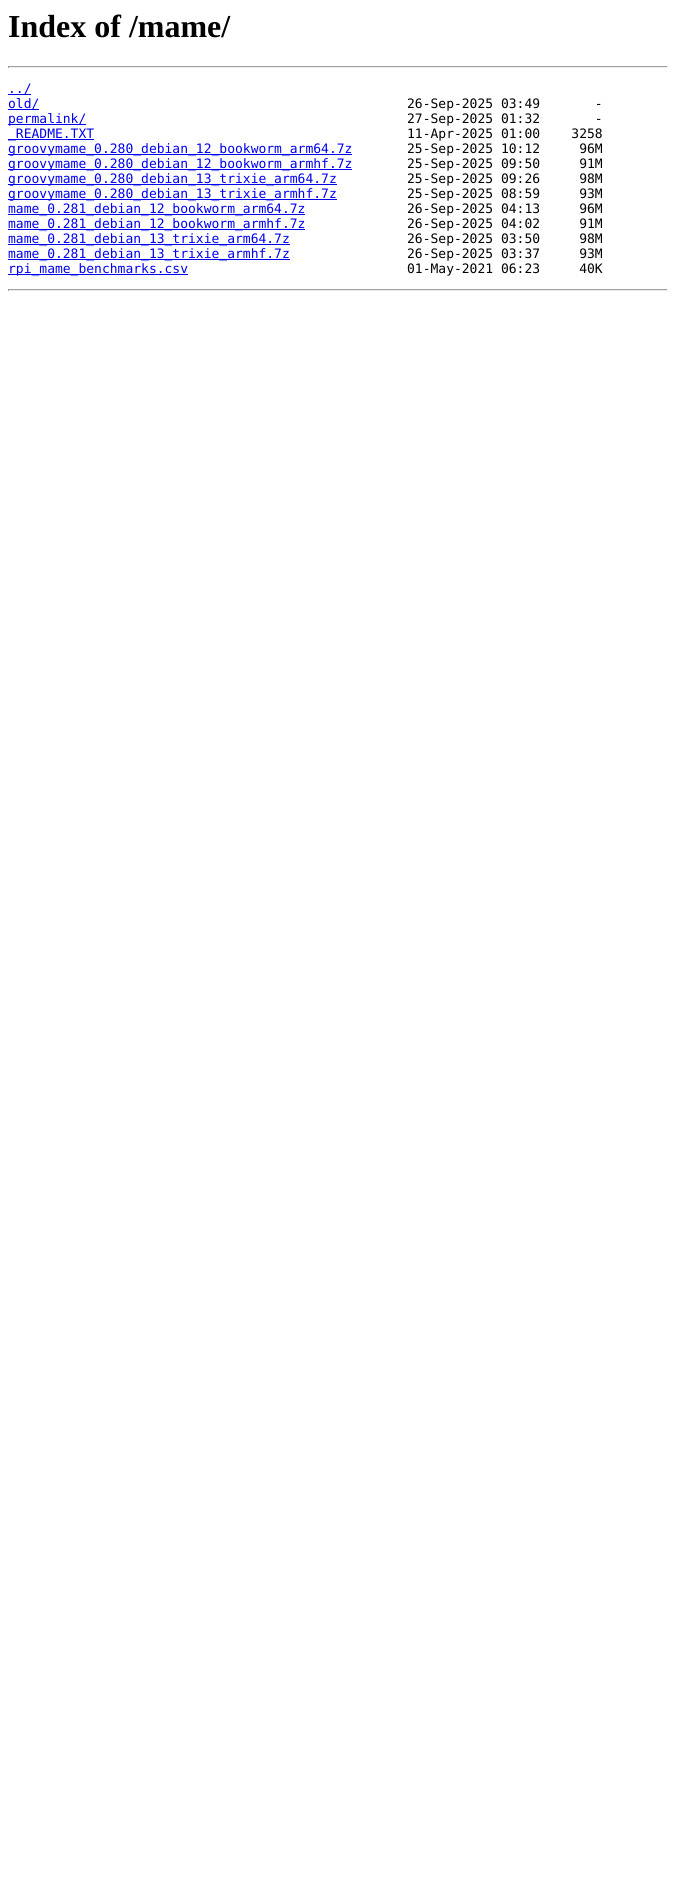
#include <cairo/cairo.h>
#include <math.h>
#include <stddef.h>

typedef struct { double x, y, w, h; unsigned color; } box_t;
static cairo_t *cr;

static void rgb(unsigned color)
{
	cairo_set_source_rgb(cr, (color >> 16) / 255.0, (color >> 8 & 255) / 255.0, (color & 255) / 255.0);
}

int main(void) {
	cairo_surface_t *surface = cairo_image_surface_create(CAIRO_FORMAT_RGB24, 676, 1895);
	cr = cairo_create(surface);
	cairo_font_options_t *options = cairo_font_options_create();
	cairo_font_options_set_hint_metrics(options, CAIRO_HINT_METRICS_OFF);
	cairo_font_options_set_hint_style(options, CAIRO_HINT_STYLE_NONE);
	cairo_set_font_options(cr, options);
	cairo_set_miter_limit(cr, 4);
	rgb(0xffffff);
	cairo_paint(cr);
	{
		static const box_t items[] = {
			{8, 66, 660, 1, 0x9f9f9f},
			{667, 66, 1, 2, 0xeeeeee},
			{8, 67, 660, 1, 0xeeeeee},
			{8, 66, 1, 2, 0x9f9f9f},
			{8, 94, 23, 1, 0x0000ee},
			{8, 109, 31, 1, 0x0000ee},
			{8, 124, 78, 1, 0x0000ee},
			{8, 139, 86, 1, 0x0000ee},
			{8, 154, 344, 1, 0x0000ee},
			{8, 169, 344, 1, 0x0000ee},
			{8, 184, 329, 1, 0x0000ee},
			{8, 199, 329, 1, 0x0000ee},
			{8, 214, 297, 1, 0x0000ee},
			{8, 229, 297, 1, 0x0000ee},
			{8, 244, 282, 1, 0x0000ee},
			{8, 259, 282, 1, 0x0000ee},
			{8, 274, 180, 1, 0x0000ee},
			{8, 289, 660, 1, 0x9f9f9f},
			{667, 289, 1, 2, 0xeeeeee},
			{8, 290, 660, 1, 0xeeeeee},
			{8, 289, 1, 2, 0x9f9f9f},
		};
		for (size_t i = 0; i < sizeof items / sizeof *items; i++) {
			rgb(items[i].color);
			cairo_rectangle(cr, items[i].x, items[i].y, items[i].w, items[i].h);
			cairo_fill(cr);
		}
	}
	cairo_select_font_face(cr, "Liberation Serif", CAIRO_FONT_SLANT_NORMAL, CAIRO_FONT_WEIGHT_BOLD);
	cairo_set_font_size(cr, 32);
	rgb(0x000000);
	cairo_move_to(cr, 8, 37);
	cairo_show_text(cr, "Index of /mame/");
	cairo_select_font_face(cr, "DejaVu Sans Mono", CAIRO_FONT_SLANT_NORMAL, CAIRO_FONT_WEIGHT_NORMAL);
	cairo_set_font_size(cr, 13);
	rgb(0x0000ee);
	cairo_move_to(cr, 8, 93);
	cairo_show_text(cr, "../");
	cairo_move_to(cr, 8, 108);
	cairo_show_text(cr, "old/");
	rgb(0x000000);
	cairo_move_to(cr, 407, 108);
	cairo_show_text(cr, "26-Sep-2025 03:49       -");
	rgb(0x0000ee);
	cairo_move_to(cr, 8, 123);
	cairo_show_text(cr, "permalink/");
	rgb(0x000000);
	cairo_move_to(cr, 407, 123);
	cairo_show_text(cr, "27-Sep-2025 01:32       -");
	rgb(0x0000ee);
	cairo_move_to(cr, 8, 138);
	cairo_show_text(cr, "_README.TXT");
	rgb(0x000000);
	cairo_move_to(cr, 407, 138);
	cairo_show_text(cr, "11-Apr-2025 01:00    3258");
	rgb(0x0000ee);
	cairo_move_to(cr, 8, 153);
	cairo_show_text(cr, "groovymame_0.280_debian_12_bookworm_arm64.7z");
	rgb(0x000000);
	cairo_move_to(cr, 407, 153);
	cairo_show_text(cr, "25-Sep-2025 10:12     96M");
	rgb(0x0000ee);
	cairo_move_to(cr, 8, 168);
	cairo_show_text(cr, "groovymame_0.280_debian_12_bookworm_armhf.7z");
	rgb(0x000000);
	cairo_move_to(cr, 407, 168);
	cairo_show_text(cr, "25-Sep-2025 09:50     91M");
	rgb(0x0000ee);
	cairo_move_to(cr, 8, 183);
	cairo_show_text(cr, "groovymame_0.280_debian_13_trixie_arm64.7z");
	rgb(0x000000);
	cairo_move_to(cr, 407, 183);
	cairo_show_text(cr, "25-Sep-2025 09:26     98M");
	rgb(0x0000ee);
	cairo_move_to(cr, 8, 198);
	cairo_show_text(cr, "groovymame_0.280_debian_13_trixie_armhf.7z");
	rgb(0x000000);
	cairo_move_to(cr, 407, 198);
	cairo_show_text(cr, "25-Sep-2025 08:59     93M");
	rgb(0x0000ee);
	cairo_move_to(cr, 8, 213);
	cairo_show_text(cr, "mame_0.281_debian_12_bookworm_arm64.7z");
	rgb(0x000000);
	cairo_move_to(cr, 407, 213);
	cairo_show_text(cr, "26-Sep-2025 04:13     96M");
	rgb(0x0000ee);
	cairo_move_to(cr, 8, 228);
	cairo_show_text(cr, "mame_0.281_debian_12_bookworm_armhf.7z");
	rgb(0x000000);
	cairo_move_to(cr, 407, 228);
	cairo_show_text(cr, "26-Sep-2025 04:02     91M");
	rgb(0x0000ee);
	cairo_move_to(cr, 8, 243);
	cairo_show_text(cr, "mame_0.281_debian_13_trixie_arm64.7z");
	rgb(0x000000);
	cairo_move_to(cr, 407, 243);
	cairo_show_text(cr, "26-Sep-2025 03:50     98M");
	rgb(0x0000ee);
	cairo_move_to(cr, 8, 258);
	cairo_show_text(cr, "mame_0.281_debian_13_trixie_armhf.7z");
	rgb(0x000000);
	cairo_move_to(cr, 407, 258);
	cairo_show_text(cr, "26-Sep-2025 03:37     93M");
	rgb(0x0000ee);
	cairo_move_to(cr, 8, 273);
	cairo_show_text(cr, "rpi_mame_benchmarks.csv");
	rgb(0x000000);
	cairo_move_to(cr, 407, 273);
	cairo_show_text(cr, "01-May-2021 06:23     40K");
	cairo_surface_write_to_png(surface, "page.png");
	cairo_font_options_destroy(options);
	cairo_destroy(cr);
	cairo_surface_destroy(surface);
	return 0;
}
